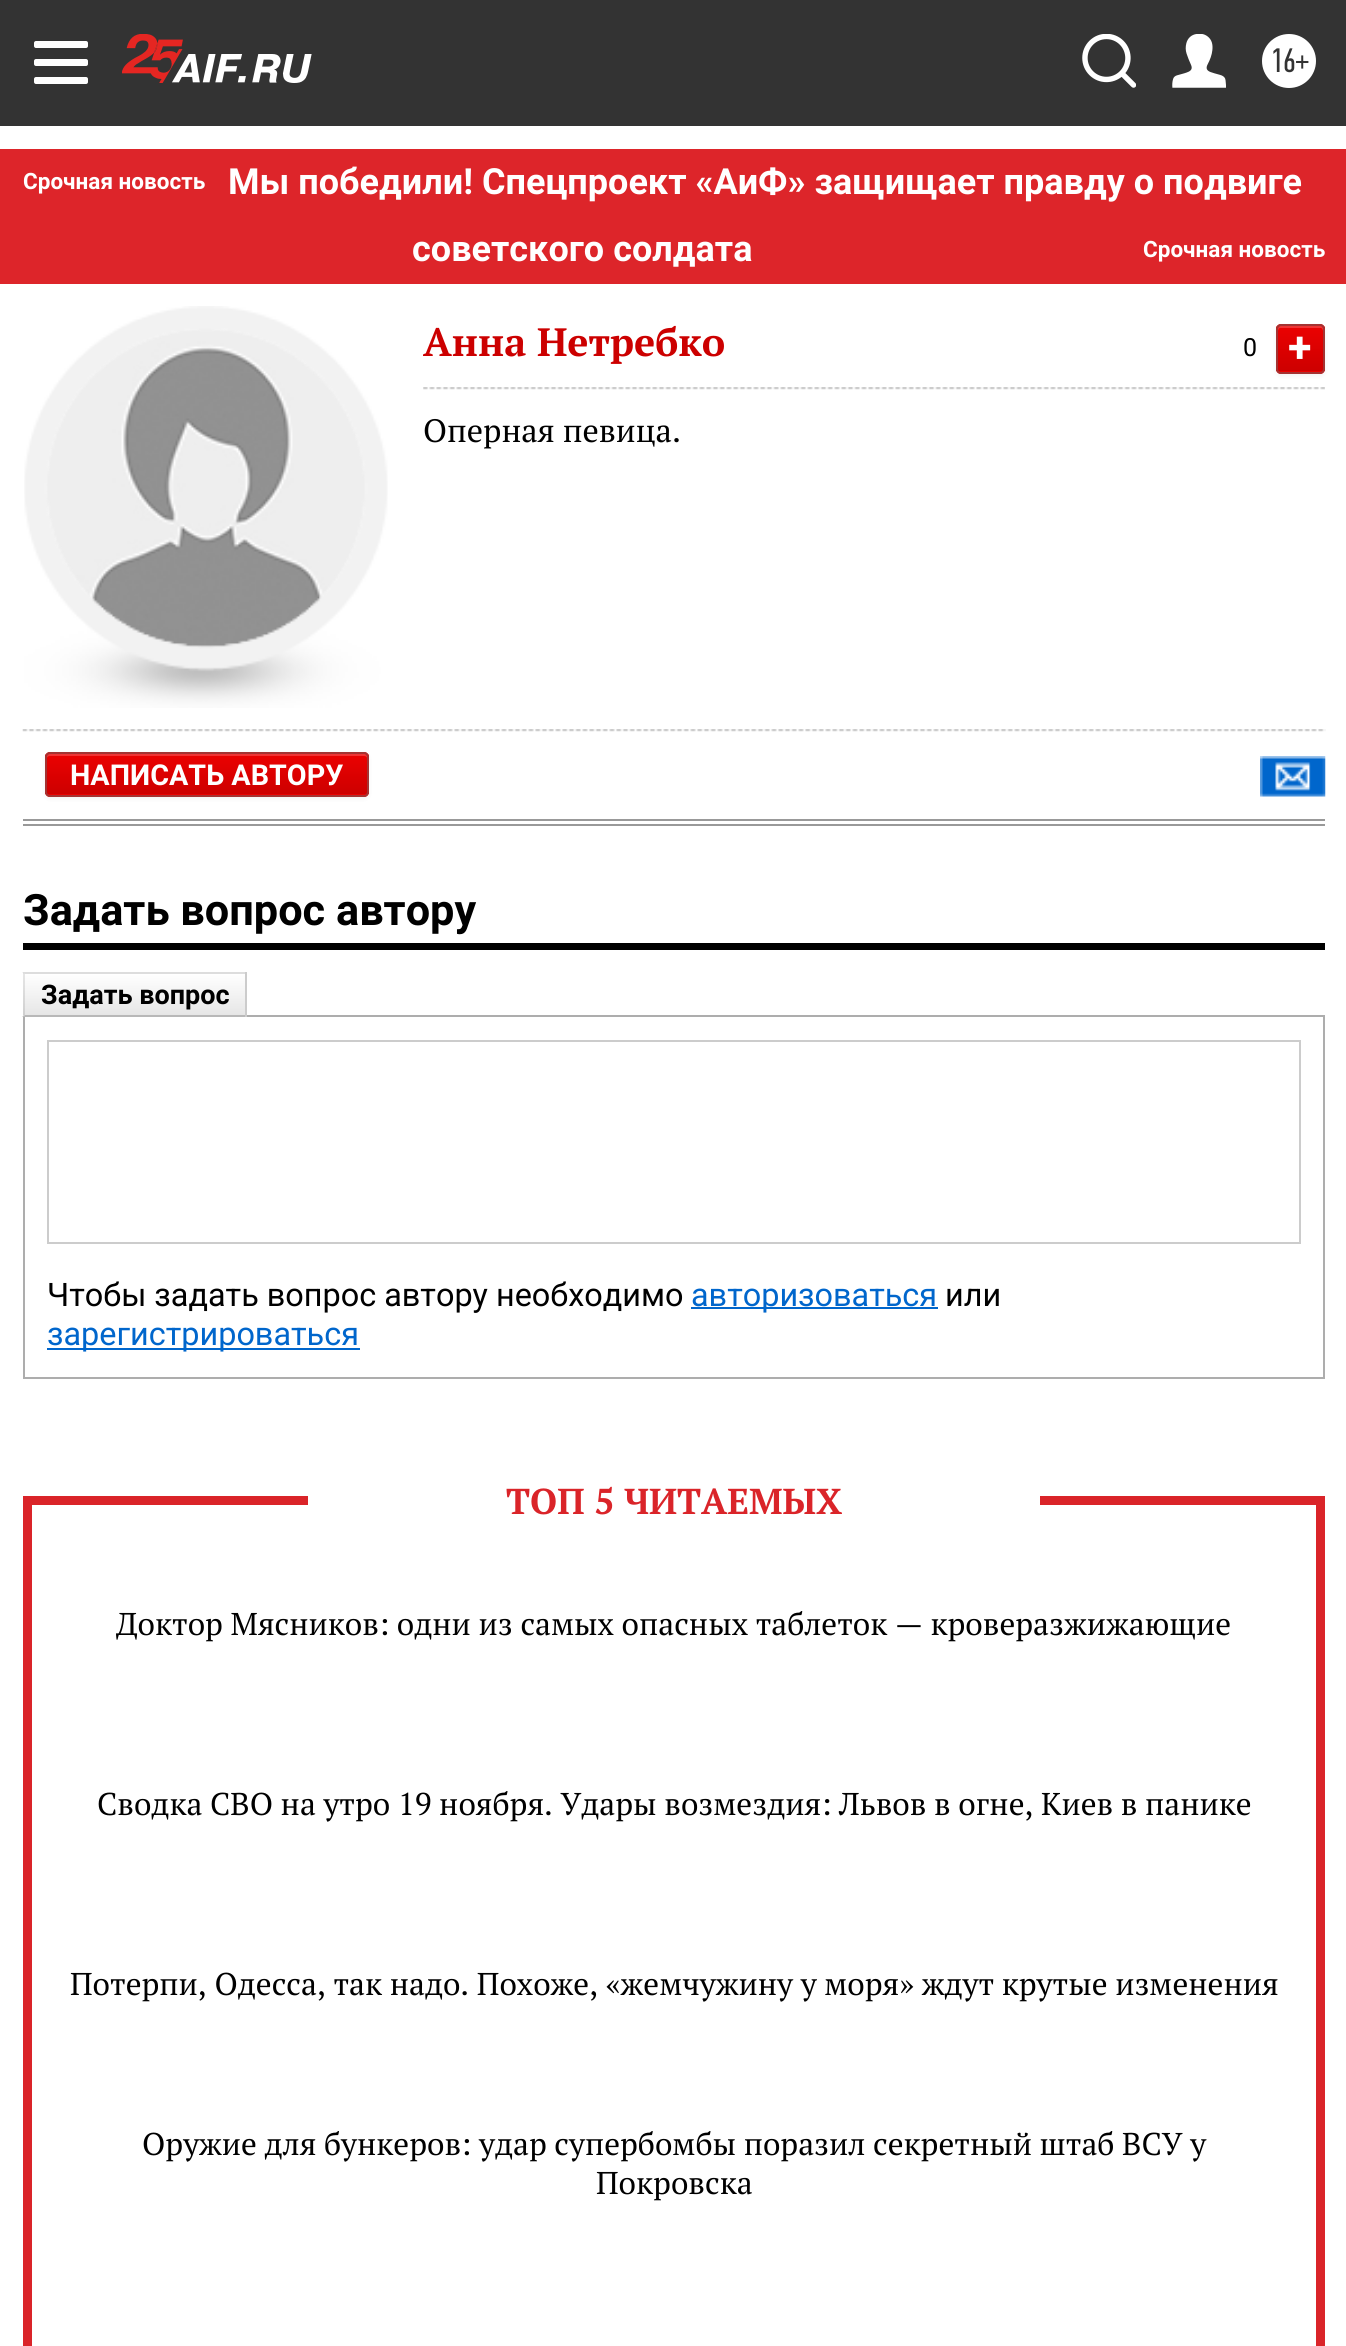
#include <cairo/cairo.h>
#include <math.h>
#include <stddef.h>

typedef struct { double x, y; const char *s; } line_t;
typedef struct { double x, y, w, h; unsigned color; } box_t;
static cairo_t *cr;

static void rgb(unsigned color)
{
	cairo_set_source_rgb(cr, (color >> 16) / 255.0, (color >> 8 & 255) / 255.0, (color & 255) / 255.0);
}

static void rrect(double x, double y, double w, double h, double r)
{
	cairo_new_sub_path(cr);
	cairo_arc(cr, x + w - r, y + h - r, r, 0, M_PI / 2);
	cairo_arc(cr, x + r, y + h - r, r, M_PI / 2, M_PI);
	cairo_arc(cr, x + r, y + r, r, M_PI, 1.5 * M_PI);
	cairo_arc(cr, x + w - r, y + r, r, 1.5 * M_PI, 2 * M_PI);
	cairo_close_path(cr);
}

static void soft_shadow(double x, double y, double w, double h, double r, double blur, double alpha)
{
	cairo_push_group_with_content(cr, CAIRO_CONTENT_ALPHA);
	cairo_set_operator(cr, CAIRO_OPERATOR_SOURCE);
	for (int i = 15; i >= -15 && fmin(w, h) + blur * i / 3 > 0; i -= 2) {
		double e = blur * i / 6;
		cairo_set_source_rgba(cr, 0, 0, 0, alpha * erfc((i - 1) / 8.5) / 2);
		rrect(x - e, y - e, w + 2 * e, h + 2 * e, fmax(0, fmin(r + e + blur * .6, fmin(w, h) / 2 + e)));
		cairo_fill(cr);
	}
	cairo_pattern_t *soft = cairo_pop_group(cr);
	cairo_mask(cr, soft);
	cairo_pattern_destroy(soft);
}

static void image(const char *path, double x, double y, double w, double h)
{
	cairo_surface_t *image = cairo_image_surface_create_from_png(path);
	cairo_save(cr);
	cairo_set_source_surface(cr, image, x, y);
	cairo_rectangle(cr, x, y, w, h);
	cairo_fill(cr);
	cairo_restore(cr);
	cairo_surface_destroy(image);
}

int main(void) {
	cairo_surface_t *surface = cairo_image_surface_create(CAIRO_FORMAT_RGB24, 1346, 2346);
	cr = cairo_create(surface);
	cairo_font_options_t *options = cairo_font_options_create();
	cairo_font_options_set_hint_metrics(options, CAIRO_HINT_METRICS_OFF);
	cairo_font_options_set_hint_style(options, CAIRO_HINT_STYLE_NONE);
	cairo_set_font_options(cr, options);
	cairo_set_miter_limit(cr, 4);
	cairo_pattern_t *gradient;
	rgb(0xffffff);
	cairo_paint(cr);
	rgb(0x333333);
	cairo_rectangle(cr, 0, 0, 1346, 126);
	cairo_fill(cr);
	rgb(0xffffff);
	rrect(34, 41, 54, 7, 2);
	cairo_fill(cr);
	rrect(34, 59, 54, 7, 2);
	cairo_fill(cr);
	rrect(34, 77, 54, 7, 2);
	cairo_fill(cr);
	image("img/1.png", 122, 34, 190, 49);
	image("img/2.png", 1082, 34, 54, 54);
	image("img/3.png", 1172, 34, 54, 54);
	cairo_arc(cr, 1289, 61, 27, 0, 2 * M_PI);
	cairo_fill(cr);
	{
		static const box_t items[] = {
			{0, 149, 1346, 135, 0xdd252a},
			{23, 819, 1302, 2, 0x999999},
			{23, 824, 1302, 2, 0x999999},
		};
		for (size_t i = 0; i < sizeof items / sizeof *items; i++) {
			rgb(items[i].color);
			cairo_rectangle(cr, items[i].x, items[i].y, items[i].w, items[i].h);
			cairo_fill(cr);
		}
	}
	image("img/5.png", 46, 328, 320, 321);
	image("img/4.png", 24, 306, 364, 402);
	image("img/6.png", 423, 387, 902, 3);
	rgb(0x000000);
	soft_shadow(1276, 326, 49, 50, 5, 2, 0.05);
	rgb(0xeb0101);
	rrect(1276, 324, 49, 50, 5);
	cairo_fill(cr);
	cairo_save(cr);
	rrect(1276, 324, 49, 50, 5);
	cairo_clip(cr);
	gradient = cairo_pattern_create_linear(1301, 326, 1301, 371);
	cairo_pattern_add_color_stop_rgba(gradient, 0, 0.922, 0.004, 0.004, 1);
	cairo_pattern_add_color_stop_rgba(gradient, 1, 0.804, 0, 0, 1);
	cairo_set_source(cr, gradient);
	cairo_pattern_destroy(gradient);
	cairo_rectangle(cr, 1276, 326, 49, 45);
	cairo_fill(cr);
	cairo_restore(cr);
	rgb(0xef3434);
	cairo_new_path(cr);
	cairo_move_to(cr, 1280, 328);
	cairo_line_to(cr, 1321, 328);
	cairo_curve_to(cr, 1322, 328, 1323, 330, 1323, 331);
	cairo_curve_to(cr, 1323, 324, 1322, 326, 1314, 326);
	cairo_line_to(cr, 1287, 326);
	cairo_curve_to(cr, 1279, 326, 1278, 324, 1278, 331);
	cairo_curve_to(cr, 1278, 330, 1279, 328, 1280, 328);
	cairo_close_path(cr);
	cairo_fill(cr);
	rrect(1277, 325, 47, 48, 4);
	rgb(0xa43332);
	cairo_stroke(cr);
	image("img/7.png", 22, 729, 1304, 3);
	rgb(0x000000);
	soft_shadow(45, 754, 324, 45, 5, 2, 0.05);
	rgb(0xeb0101);
	rrect(45, 752, 324, 45, 5);
	cairo_fill(cr);
	cairo_save(cr);
	rrect(45, 752, 324, 45, 5);
	cairo_clip(cr);
	gradient = cairo_pattern_create_linear(207, 754, 207, 794);
	cairo_pattern_add_color_stop_rgba(gradient, 0, 0.922, 0.004, 0.004, 1);
	cairo_pattern_add_color_stop_rgba(gradient, 1, 0.804, 0, 0, 1);
	cairo_set_source(cr, gradient);
	cairo_pattern_destroy(gradient);
	cairo_rectangle(cr, 45, 754, 324, 40);
	cairo_fill(cr);
	cairo_restore(cr);
	rgb(0xef3434);
	cairo_new_path(cr);
	cairo_move_to(cr, 50, 756);
	cairo_line_to(cr, 364, 756);
	cairo_curve_to(cr, 366, 756, 367, 757, 367, 758);
	cairo_line_to(cr, 367, 756);
	cairo_curve_to(cr, 367, 755, 366, 754, 365, 754);
	cairo_line_to(cr, 49, 754);
	cairo_curve_to(cr, 48, 754, 47, 755, 47, 756);
	cairo_line_to(cr, 47, 758);
	cairo_curve_to(cr, 47, 757, 48, 756, 50, 756);
	cairo_close_path(cr);
	cairo_fill(cr);
	rrect(46, 753, 322, 43, 4);
	rgb(0xa43332);
	cairo_stroke(cr);
	image("img/8.png", 1260, 756, 66, 41);
	rgb(0x000000);
	cairo_rectangle(cr, 23, 943, 1302, 7);
	cairo_fill(cr);
	cairo_rectangle(cr, 24, 1016, 1300, 362);
	rgb(0xadadad);
	cairo_stroke(cr);
	rgb(0xcccccc);
	cairo_rectangle(cr, 245, 972, 2, 45);
	cairo_fill(cr);
	rgb(0xf5f5f5);
	cairo_rectangle(cr, 23, 972, 2, 45);
	cairo_fill(cr);
	gradient = cairo_pattern_create_linear(135, 974, 135, 1015);
	cairo_pattern_add_color_stop_rgba(gradient, 0, 1, 1, 1, 1);
	cairo_pattern_add_color_stop_rgba(gradient, 1, 0.902, 0.902, 0.902, 1);
	cairo_set_source(cr, gradient);
	cairo_pattern_destroy(gradient);
	cairo_rectangle(cr, 23, 974, 222, 41);
	cairo_fill(cr);
	rgb(0xdddddd);
	cairo_new_path(cr);
	cairo_move_to(cr, 22, 972);
	cairo_line_to(cr, 245, 972);
	cairo_line_to(cr, 245, 974);
	cairo_line_to(cr, 25, 974);
	cairo_close_path(cr);
	cairo_fill(cr);
	rgb(0xb8b8b8);
	cairo_new_path(cr);
	cairo_move_to(cr, 245, 1017);
	cairo_line_to(cr, 22, 1017);
	cairo_line_to(cr, 25, 1015);
	cairo_line_to(cr, 245, 1015);
	cairo_close_path(cr);
	cairo_fill(cr);
	cairo_save(cr);
	cairo_rectangle(cr, 23, 972, 222, 45);
	cairo_clip(cr);
	cairo_set_source_rgba(cr, 0, 0, 0, 0.1);
	cairo_new_path(cr);
	cairo_move_to(cr, 22, 1017);
	cairo_line_to(cr, 22, 972);
	cairo_line_to(cr, 25, 974);
	cairo_line_to(cr, 25, 1015);
	cairo_close_path(cr);
	cairo_fill(cr);
	cairo_restore(cr);
	cairo_rectangle(cr, 48, 1041, 1252, 202);
	rgb(0xcccccc);
	cairo_stroke(cr);
	{
		static const box_t items[] = {
			{691, 1307, 247, 2, 0x0066cc},
			{47, 1348, 313, 2, 0x0066cc},
			{23, 1496, 285, 9, 0xda2429},
			{1040, 1496, 285, 9, 0xda2429},
			{1316, 1505, 9, 841, 0xda2429},
			{23, 1505, 9, 841, 0xda2429},
		};
		for (size_t i = 0; i < sizeof items / sizeof *items; i++) {
			rgb(items[i].color);
			cairo_rectangle(cr, items[i].x, items[i].y, items[i].w, items[i].h);
			cairo_fill(cr);
		}
	}
	cairo_select_font_face(cr, "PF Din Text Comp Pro", CAIRO_FONT_SLANT_NORMAL, CAIRO_FONT_WEIGHT_NORMAL);
	cairo_set_font_size(cr, 34);
	rgb(0x333333);
	cairo_move_to(cr, 1270, 72);
	cairo_show_text(cr, "16+");
	cairo_select_font_face(cr, "Roboto", CAIRO_FONT_SLANT_NORMAL, CAIRO_FONT_WEIGHT_BOLD);
	cairo_set_font_size(cr, 22.5);
	rgb(0xffffff);
	cairo_move_to(cr, 23, 189);
	cairo_show_text(cr, "Срочная новость");
	cairo_set_font_size(cr, 36);
	cairo_move_to(cr, 228, 194);
	cairo_show_text(cr, "Мы победили! Спецпроект «АиФ» защищает правду о подвиге");
	cairo_move_to(cr, 412, 261);
	cairo_show_text(cr, "советского солдата");
	cairo_set_font_size(cr, 22.5);
	cairo_move_to(cr, 1143, 257);
	cairo_show_text(cr, "Срочная новость");
	cairo_select_font_face(cr, "PT Serif", CAIRO_FONT_SLANT_NORMAL, CAIRO_FONT_WEIGHT_BOLD);
	cairo_set_font_size(cr, 39.5);
	rgb(0xcc0000);
	cairo_move_to(cr, 423, 356);
	cairo_show_text(cr, "Анна Нетребко");
	cairo_select_font_face(cr, "Roboto", CAIRO_FONT_SLANT_NORMAL, CAIRO_FONT_WEIGHT_NORMAL);
	cairo_set_font_size(cr, 25);
	rgb(0x000000);
	cairo_move_to(cr, 1243, 356);
	cairo_show_text(cr, "0");
	cairo_select_font_face(cr, "Roboto", CAIRO_FONT_SLANT_NORMAL, CAIRO_FONT_WEIGHT_BOLD);
	cairo_set_font_size(cr, 43);
	rgb(0xffffff);
	cairo_move_to(cr, 1288, 362);
	cairo_show_text(cr, "+");
	cairo_select_font_face(cr, "PT Serif", CAIRO_FONT_SLANT_NORMAL, CAIRO_FONT_WEIGHT_NORMAL);
	cairo_set_font_size(cr, 32.4);
	rgb(0x000000);
	cairo_move_to(cr, 423, 442);
	cairo_show_text(cr, "Оперная певица.");
	cairo_select_font_face(cr, "Roboto", CAIRO_FONT_SLANT_NORMAL, CAIRO_FONT_WEIGHT_BOLD);
	cairo_set_font_size(cr, 28.75);
	rgb(0xffffff);
	cairo_move_to(cr, 70, 785);
	cairo_show_text(cr, "НАПИСАТЬ АВТОРУ");
	cairo_set_font_size(cr, 43.25);
	rgb(0x000000);
	cairo_move_to(cr, 23, 925);
	cairo_show_text(cr, "Задать вопрос автору");
	cairo_set_font_size(cr, 27);
	cairo_move_to(cr, 41, 1004);
	cairo_show_text(cr, "Задать вопрос");
	cairo_select_font_face(cr, "Roboto", CAIRO_FONT_SLANT_NORMAL, CAIRO_FONT_WEIGHT_NORMAL);
	cairo_set_font_size(cr, 32.4);
	cairo_move_to(cr, 47, 1306);
	cairo_show_text(cr, "Чтобы задать вопрос автору необходимо");
	rgb(0x0066cc);
	cairo_move_to(cr, 691, 1306);
	cairo_show_text(cr, "авторизоваться");
	rgb(0x000000);
	cairo_move_to(cr, 945, 1306);
	cairo_show_text(cr, "или");
	rgb(0x0066cc);
	cairo_move_to(cr, 47, 1345);
	cairo_show_text(cr, "зарегистрироваться");
	cairo_select_font_face(cr, "PT Serif", CAIRO_FONT_SLANT_NORMAL, CAIRO_FONT_WEIGHT_BOLD);
	cairo_set_font_size(cr, 36);
	rgb(0xda2429);
	cairo_move_to(cr, 506, 1514);
	cairo_show_text(cr, "ТОП 5 ЧИТАЕМЫХ");
	cairo_select_font_face(cr, "PT Serif", CAIRO_FONT_SLANT_NORMAL, CAIRO_FONT_WEIGHT_NORMAL);
	cairo_set_font_size(cr, 31.5);
	rgb(0x000000);
	{
		static const line_t items[] = {
			{116, 1635, "Доктор Мясников: одни из самых опасных таблеток — кроверазжижающие"},
			{97, 1815, "Сводка СВО на утро 19 ноября. Удары возмездия: Львов в огне, Киев в панике"},
			{70, 1995, "Потерпи, Одесса, так надо. Похоже, «жемчужину у моря» ждут крутые изменения"},
			{142, 2155, "Оружие для бункеров: удар супербомбы поразил секретный штаб ВСУ у"},
			{596, 2194, "Покровска"},
		};
		for (size_t i = 0; i < sizeof items / sizeof *items; i++) {
			cairo_move_to(cr, items[i].x, items[i].y);
			cairo_show_text(cr, items[i].s);
		}
	}
	cairo_surface_write_to_png(surface, "page.png");
	cairo_font_options_destroy(options);
	cairo_destroy(cr);
	cairo_surface_destroy(surface);
	return 0;
}
